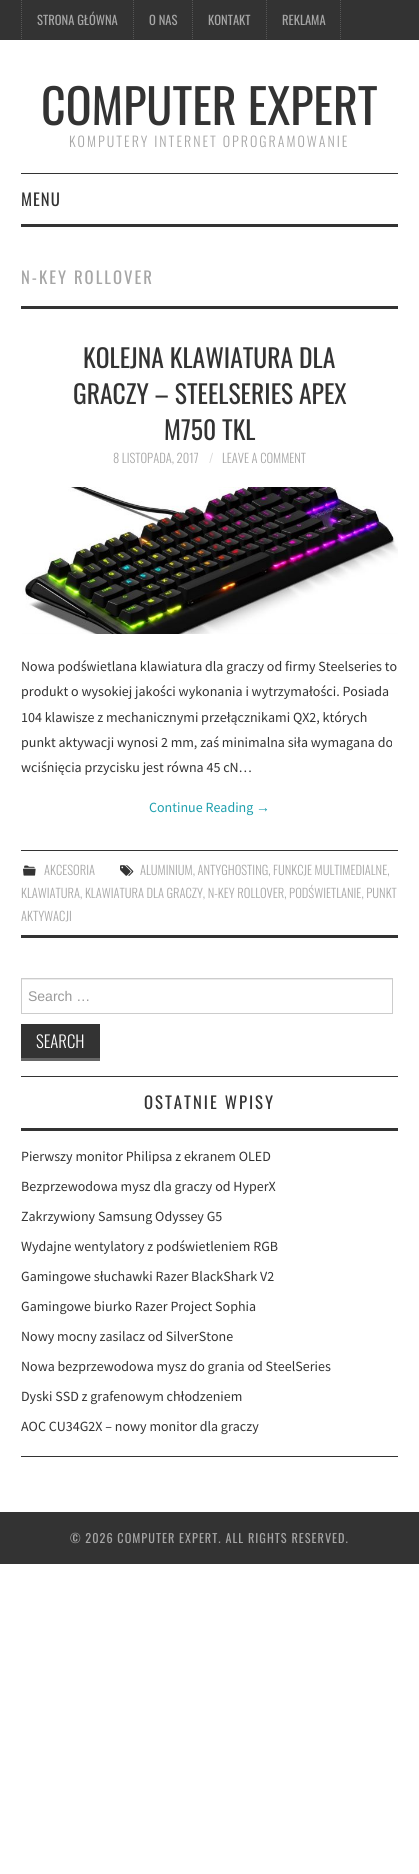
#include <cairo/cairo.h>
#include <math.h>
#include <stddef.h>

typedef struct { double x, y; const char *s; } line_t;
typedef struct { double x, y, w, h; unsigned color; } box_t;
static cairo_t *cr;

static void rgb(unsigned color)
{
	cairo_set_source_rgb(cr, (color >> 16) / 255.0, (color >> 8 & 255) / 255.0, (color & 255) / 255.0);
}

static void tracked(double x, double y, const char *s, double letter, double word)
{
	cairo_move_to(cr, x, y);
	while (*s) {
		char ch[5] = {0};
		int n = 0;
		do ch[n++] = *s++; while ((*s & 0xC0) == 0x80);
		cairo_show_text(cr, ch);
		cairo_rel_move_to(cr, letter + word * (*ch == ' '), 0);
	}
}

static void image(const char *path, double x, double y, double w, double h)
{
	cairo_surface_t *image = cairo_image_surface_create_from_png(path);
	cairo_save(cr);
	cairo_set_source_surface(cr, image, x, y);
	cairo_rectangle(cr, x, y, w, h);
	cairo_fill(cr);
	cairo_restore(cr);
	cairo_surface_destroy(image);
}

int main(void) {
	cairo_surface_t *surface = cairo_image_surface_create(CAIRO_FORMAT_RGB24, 419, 1874);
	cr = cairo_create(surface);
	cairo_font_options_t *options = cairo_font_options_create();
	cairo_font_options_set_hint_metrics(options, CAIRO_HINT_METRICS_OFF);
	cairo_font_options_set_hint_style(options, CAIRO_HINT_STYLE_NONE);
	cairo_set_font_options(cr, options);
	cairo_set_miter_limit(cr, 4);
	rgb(0xffffff);
	cairo_paint(cr);
	rgb(0x333333);
	cairo_rectangle(cr, 0, 0, 419, 40);
	cairo_fill(cr);
	cairo_new_path(cr);
	cairo_move_to(cr, 21.5, 0);
	cairo_line_to(cr, 21.5, 40);
	rgb(0x565656);
	cairo_set_line_width(cr, 1);
	cairo_set_dash(cr, (double[]){1, 1}, 2, 0);
	cairo_stroke(cr);
	cairo_new_path(cr);
	cairo_move_to(cr, 133.5, 0);
	cairo_line_to(cr, 133.5, 40);
	cairo_stroke(cr);
	cairo_new_path(cr);
	cairo_move_to(cr, 192.5, 0);
	cairo_line_to(cr, 192.5, 40);
	cairo_stroke(cr);
	cairo_new_path(cr);
	cairo_move_to(cr, 266.5, 0);
	cairo_line_to(cr, 266.5, 40);
	cairo_stroke(cr);
	cairo_new_path(cr);
	cairo_move_to(cr, 340.5, 0);
	cairo_line_to(cr, 340.5, 40);
	cairo_stroke(cr);
	{
		static const box_t items[] = {
			{21, 173, 377, 1, 0x333333},
			{21, 224, 377, 3, 0x333333},
			{21, 306, 377, 3, 0x333333},
		};
		for (size_t i = 0; i < sizeof items / sizeof *items; i++) {
			rgb(items[i].color);
			cairo_rectangle(cr, items[i].x, items[i].y, items[i].w, items[i].h);
			cairo_fill(cr);
		}
	}
	image("img/1.png", 22, 487, 376, 147);
	cairo_rectangle(cr, 21, 850, 377, 1);
	cairo_fill(cr);
	cairo_rectangle(cr, 21, 935, 377, 3);
	cairo_fill(cr);
	image("img/2.png", 120, 865, 14, 11);
	image("img/3.png", 23, 865, 13, 11);
	cairo_rectangle(cr, 21, 1076, 377, 1);
	cairo_fill(cr);
	rgb(0xececec);
	cairo_rectangle(cr, 22, 979, 370, 1);
	cairo_fill(cr);
	cairo_rectangle(cr, 21.5, 978.5, 371, 35);
	rgb(0xcccccc);
	cairo_set_dash(cr, NULL, 0, 0);
	cairo_stroke(cr);
	{
		static const box_t items[] = {
			{21, 1024, 79, 34, 0x333333},
			{21, 1058, 79, 3, 0x666666},
			{21, 1456, 377, 1, 0x333333},
			{21, 1128, 377, 3, 0x333333},
			{0, 1512, 419, 52, 0x333333},
		};
		for (size_t i = 0; i < sizeof items / sizeof *items; i++) {
			rgb(items[i].color);
			cairo_rectangle(cr, items[i].x, items[i].y, items[i].w, items[i].h);
			cairo_fill(cr);
		}
	}
	cairo_select_font_face(cr, "Oswald", CAIRO_FONT_SLANT_NORMAL, CAIRO_FONT_WEIGHT_NORMAL);
	cairo_set_font_size(cr, 12.6);
	rgb(0xa6a6a6);
	{
		static const line_t items[] = {
			{37, 25, "STRONA GŁÓWNA"},
			{149, 25, "O NAS"},
			{208, 25, "KONTAKT"},
			{282, 25, "REKLAMA"},
		};
		for (size_t i = 0; i < sizeof items / sizeof *items; i++) {
			cairo_move_to(cr, items[i].x, items[i].y);
			cairo_show_text(cr, items[i].s);
		}
	}
	cairo_set_font_size(cr, 48);
	rgb(0x333333);
	cairo_move_to(cr, 41, 125);
	cairo_show_text(cr, "COMPUTER EXPERT");
	cairo_select_font_face(cr, "Oswald Light", CAIRO_FONT_SLANT_NORMAL, CAIRO_FONT_WEIGHT_NORMAL);
	cairo_set_font_size(cr, 14);
	rgb(0xa6a6a6);
	tracked(69, 147, "KOMPUTERY INTERNET OPROGRAMOWANIE", 2, 0);
	cairo_select_font_face(cr, "Oswald", CAIRO_FONT_SLANT_NORMAL, CAIRO_FONT_WEIGHT_NORMAL);
	cairo_set_font_size(cr, 16.75);
	rgb(0x333333);
	tracked(21, 206, "MENU", 1, 0);
	rgb(0xa6a6a6);
	tracked(21, 284, "N-KEY ROLLOVER", 2, 0);
	cairo_set_font_size(cr, 25.6);
	rgb(0x333333);
	{
		static const line_t items[] = {
			{83, 368, "KOLEJNA KLAWIATURA DLA"},
			{73, 404, "GRACZY – STEELSERIES APEX"},
			{164, 440, "M750 TKL"},
		};
		for (size_t i = 0; i < sizeof items / sizeof *items; i++) {
			cairo_move_to(cr, items[i].x, items[i].y);
			cairo_show_text(cr, items[i].s);
		}
	}
	cairo_select_font_face(cr, "Oswald Light", CAIRO_FONT_SLANT_NORMAL, CAIRO_FONT_WEIGHT_NORMAL);
	cairo_set_font_size(cr, 12.6);
	rgb(0xa6a6a6);
	cairo_move_to(cr, 113, 463);
	cairo_show_text(cr, "8 LISTOPADA, 2017");
	rgb(0xd6d6d6);
	cairo_move_to(cr, 209, 463);
	cairo_show_text(cr, "/");
	rgb(0xa6a6a6);
	cairo_move_to(cr, 222, 463);
	cairo_show_text(cr, "LEAVE A COMMENT");
	cairo_select_font_face(cr, "Source Sans Pro", CAIRO_FONT_SLANT_NORMAL, CAIRO_FONT_WEIGHT_NORMAL);
	cairo_set_font_size(cr, 14);
	rgb(0x333333);
	{
		static const line_t items[] = {
			{21, 671, "Nowa podświetlana klawiatura dla graczy od firmy Steelseries to"},
			{21, 696, "produkt o wysokiej jakości wykonania i wytrzymałości. Posiada"},
			{21, 722, "104 klawisze z mechanicznymi przełącznikami QX2, których"},
			{21, 747, "punkt aktywacji wynosi 2 mm, zaś minimalna siła wymagana do"},
			{21, 772, "wciśnięcia przycisku jest równa 45 cN…"},
		};
		for (size_t i = 0; i < sizeof items / sizeof *items; i++) {
			cairo_move_to(cr, items[i].x, items[i].y);
			cairo_show_text(cr, items[i].s);
		}
	}
	rgb(0x1fa0ae);
	cairo_move_to(cr, 149, 812);
	cairo_show_text(cr, "Continue Reading");
	cairo_select_font_face(cr, "Liberation Serif", CAIRO_FONT_SLANT_NORMAL, CAIRO_FONT_WEIGHT_NORMAL);
	cairo_move_to(cr, 256, 812);
	cairo_show_text(cr, "→");
	cairo_select_font_face(cr, "Oswald Light", CAIRO_FONT_SLANT_NORMAL, CAIRO_FONT_WEIGHT_NORMAL);
	cairo_set_font_size(cr, 12.6);
	rgb(0xa6a6a6);
	{
		static const line_t items[] = {
			{140, 875, "ALUMINIUM, ANTYGHOSTING, FUNKCJE MULTIMEDIALNE,"},
			{21, 898, "KLAWIATURA, KLAWIATURA DLA GRACZY, N-KEY ROLLOVER, PODŚWIETLANIE, PUNKT"},
			{21, 921, "AKTYWACJI"},
			{44, 875, "AKCESORIA"},
		};
		for (size_t i = 0; i < sizeof items / sizeof *items; i++) {
			cairo_move_to(cr, items[i].x, items[i].y);
			cairo_show_text(cr, items[i].s);
		}
	}
	cairo_select_font_face(cr, "Liberation Sans", CAIRO_FONT_SLANT_NORMAL, CAIRO_FONT_WEIGHT_NORMAL);
	cairo_set_font_size(cr, 14);
	rgb(0x999999);
	cairo_move_to(cr, 28, 1001);
	cairo_show_text(cr, "Search …");
	cairo_select_font_face(cr, "Oswald Light", CAIRO_FONT_SLANT_NORMAL, CAIRO_FONT_WEIGHT_NORMAL);
	cairo_set_font_size(cr, 16.75);
	rgb(0xffffff);
	cairo_move_to(cr, 36, 1048);
	cairo_show_text(cr, "SEARCH");
	cairo_select_font_face(cr, "Oswald", CAIRO_FONT_SLANT_NORMAL, CAIRO_FONT_WEIGHT_NORMAL);
	rgb(0x333333);
	tracked(144, 1109, "OSTATNIE WPISY", 2, 0);
	cairo_select_font_face(cr, "Source Sans Pro", CAIRO_FONT_SLANT_NORMAL, CAIRO_FONT_WEIGHT_NORMAL);
	cairo_set_font_size(cr, 14);
	{
		static const line_t items[] = {
			{21, 1161, "Pierwszy monitor Philipsa z ekranem OLED"},
			{21, 1191, "Bezprzewodowa mysz dla graczy od HyperX"},
			{21, 1221, "Zakrzywiony Samsung Odyssey G5"},
			{21, 1251, "Wydajne wentylatory z podświetleniem RGB"},
			{21, 1281, "Gamingowe słuchawki Razer BlackShark V2"},
			{21, 1311, "Gamingowe biurko Razer Project Sophia"},
			{21, 1341, "Nowy mocny zasilacz od SilverStone"},
			{21, 1371, "Nowa bezprzewodowa mysz do grania od SteelSeries"},
			{21, 1401, "Dyski SSD z grafenowym chłodzeniem"},
			{21, 1431, "AOC CU34G2X – nowy monitor dla graczy"},
		};
		for (size_t i = 0; i < sizeof items / sizeof *items; i++) {
			cairo_move_to(cr, items[i].x, items[i].y);
			cairo_show_text(cr, items[i].s);
		}
	}
	cairo_select_font_face(cr, "Oswald", CAIRO_FONT_SLANT_NORMAL, CAIRO_FONT_WEIGHT_NORMAL);
	cairo_set_font_size(cr, 12.25);
	rgb(0xa6a6a6);
	tracked(70, 1543, "© 2026 COMPUTER EXPERT. ALL RIGHTS RESERVED.", 1, 0);
	cairo_surface_write_to_png(surface, "page.png");
	cairo_font_options_destroy(options);
	cairo_destroy(cr);
	cairo_surface_destroy(surface);
	return 0;
}
